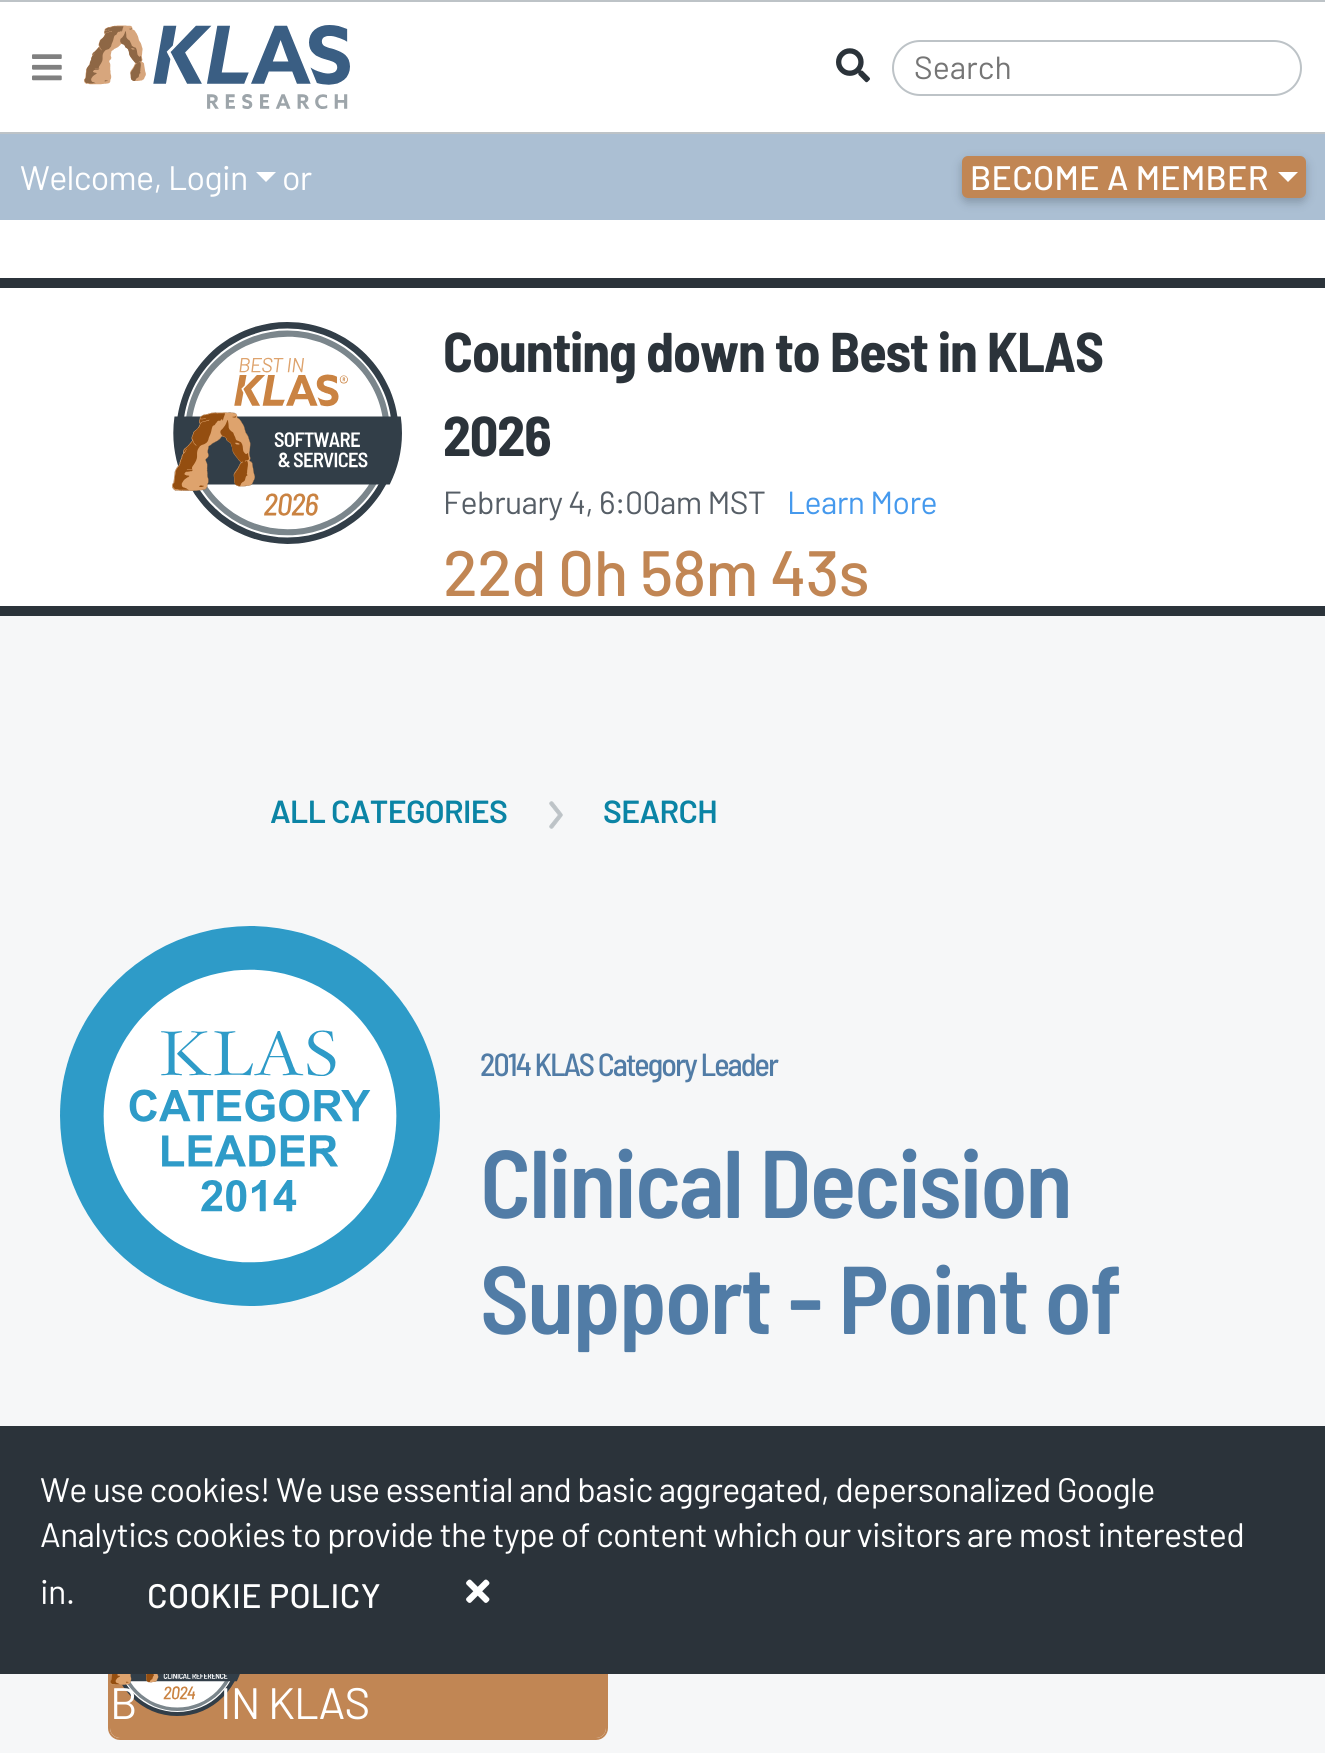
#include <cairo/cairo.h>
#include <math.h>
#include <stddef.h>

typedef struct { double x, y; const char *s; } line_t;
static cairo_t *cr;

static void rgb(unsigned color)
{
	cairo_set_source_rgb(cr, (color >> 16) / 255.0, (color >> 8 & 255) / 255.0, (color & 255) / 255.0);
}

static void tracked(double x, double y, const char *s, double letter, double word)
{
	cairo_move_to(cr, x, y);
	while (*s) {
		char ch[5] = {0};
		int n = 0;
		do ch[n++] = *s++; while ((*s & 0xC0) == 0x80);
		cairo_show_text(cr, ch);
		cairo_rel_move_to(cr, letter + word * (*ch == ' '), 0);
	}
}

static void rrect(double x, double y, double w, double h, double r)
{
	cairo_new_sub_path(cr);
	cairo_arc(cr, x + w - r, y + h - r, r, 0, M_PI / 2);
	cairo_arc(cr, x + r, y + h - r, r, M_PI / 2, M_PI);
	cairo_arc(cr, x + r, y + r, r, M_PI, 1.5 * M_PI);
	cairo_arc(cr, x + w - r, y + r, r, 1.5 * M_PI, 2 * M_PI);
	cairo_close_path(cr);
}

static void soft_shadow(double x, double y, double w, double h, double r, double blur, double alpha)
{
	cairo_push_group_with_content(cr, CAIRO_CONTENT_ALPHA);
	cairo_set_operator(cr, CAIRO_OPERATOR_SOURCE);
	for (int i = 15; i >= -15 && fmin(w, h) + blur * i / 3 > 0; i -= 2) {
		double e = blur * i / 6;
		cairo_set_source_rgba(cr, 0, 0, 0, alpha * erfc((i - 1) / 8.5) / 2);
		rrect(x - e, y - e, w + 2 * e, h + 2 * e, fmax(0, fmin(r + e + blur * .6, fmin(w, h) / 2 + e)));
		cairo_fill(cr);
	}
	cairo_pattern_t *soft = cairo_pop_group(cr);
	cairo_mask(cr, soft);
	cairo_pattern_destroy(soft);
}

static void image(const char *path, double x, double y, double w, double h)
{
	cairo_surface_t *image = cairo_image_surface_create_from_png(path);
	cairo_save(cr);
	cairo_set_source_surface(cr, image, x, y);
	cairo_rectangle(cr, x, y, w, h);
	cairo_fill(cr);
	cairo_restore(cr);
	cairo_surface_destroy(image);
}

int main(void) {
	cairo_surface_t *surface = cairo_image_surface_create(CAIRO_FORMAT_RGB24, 1325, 1753);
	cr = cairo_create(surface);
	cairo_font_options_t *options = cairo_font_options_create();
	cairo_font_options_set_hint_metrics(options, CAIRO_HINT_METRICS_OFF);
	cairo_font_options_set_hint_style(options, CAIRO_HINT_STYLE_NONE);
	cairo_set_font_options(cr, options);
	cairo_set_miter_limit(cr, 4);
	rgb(0xffffff);
	cairo_paint(cr);
	rgb(0xbdc3c7);
	cairo_rectangle(cr, 0, 0, 1325, 2);
	cairo_fill(cr);
	cairo_rectangle(cr, 0, 132, 1325, 2);
	cairo_fill(cr);
	image("img/1.png", 32, 54, 30, 27);
	image("img/2.png", 84, 25, 266, 84);
	image("img/3.png", 836, 48, 34, 35);
	rrect(893, 41, 408, 54, 27);
	cairo_stroke(cr);
	rgb(0xabbfd3);
	cairo_rectangle(cr, 0, 134, 1325, 86);
	cairo_fill(cr);
	rgb(0xffffff);
	cairo_new_path(cr);
	cairo_move_to(cr, 256, 172);
	cairo_line_to(cr, 276, 172);
	cairo_line_to(cr, 266, 182);
	cairo_close_path(cr);
	cairo_fill(cr);
	rgb(0x101820);
	soft_shadow(962, 160, 344, 42, 6, 5, 0.25);
	rgb(0xc18654);
	rrect(962, 156, 344, 42, 6);
	cairo_fill(cr);
	rgb(0xffffff);
	cairo_new_path(cr);
	cairo_move_to(cr, 1278, 172);
	cairo_line_to(cr, 1298, 172);
	cairo_line_to(cr, 1288, 182);
	cairo_close_path(cr);
	cairo_fill(cr);
	rgb(0x2b333a);
	cairo_rectangle(cr, 0, 278, 1325, 10);
	cairo_fill(cr);
	image("img/4.png", 172, 322, 230, 222);
	cairo_rectangle(cr, 0, 606, 1325, 10);
	cairo_fill(cr);
	rgb(0xf6f7f8);
	cairo_rectangle(cr, 0, 616, 1325, 1137);
	cairo_fill(cr);
	image("img/5.png", 549, 801, 14, 28);
	image("img/6.png", 60, 926, 380, 380);
	rrect(109, 1619, 498, 120, 11);
	rgb(0xc18654);
	cairo_stroke(cr);
	rrect(110, 1620, 496, 118, 10);
	cairo_fill(cr);
	image("img/7.png", 110, 1674, 130, 42);
	rgb(0x2b333a);
	cairo_rectangle(cr, 0, 1426, 1325, 248);
	cairo_fill(cr);
	image("img/8.png", 466, 1579, 24, 24);
	cairo_select_font_face(cr, "Barlow", CAIRO_FONT_SLANT_NORMAL, CAIRO_FONT_WEIGHT_NORMAL);
	cairo_set_font_size(cr, 32);
	rgb(0x757575);
	cairo_move_to(cr, 914, 79);
	cairo_show_text(cr, "Search");
	cairo_set_font_size(cr, 34);
	rgb(0xffffff);
	tracked(20, 190, "Welcome, Login", -0.68, 0);
	tracked(282, 190, "or", -0.68, 0);
	cairo_select_font_face(cr, "Barlow Medium", CAIRO_FONT_SLANT_NORMAL, CAIRO_FONT_WEIGHT_NORMAL);
	tracked(970, 190, "BECOME A MEMBER", 0.3, 0);
	cairo_select_font_face(cr, "Barlow Semi Condensed", CAIRO_FONT_SLANT_NORMAL, CAIRO_FONT_WEIGHT_BOLD);
	cairo_set_font_size(cr, 56);
	rgb(0x2b333a);
	tracked(443, 372, "Counting down to Best in KLAS", -1.1, 0);
	tracked(443, 456, "2026", -1.1, 0);
	cairo_select_font_face(cr, "Barlow", CAIRO_FONT_SLANT_NORMAL, CAIRO_FONT_WEIGHT_NORMAL);
	cairo_set_font_size(cr, 32);
	rgb(0x565e66);
	tracked(443, 514, "February 4, 6:00am MST", -0.6, 0);
	rgb(0x4599ed);
	tracked(787, 514, "Learn More", -0.6, 0);
	cairo_select_font_face(cr, "Barlow Medium", CAIRO_FONT_SLANT_NORMAL, CAIRO_FONT_WEIGHT_NORMAL);
	cairo_set_font_size(cr, 64);
	rgb(0xc18654);
	tracked(443, 596, "22d 0h 58m 43s", -0.68, 0);
	cairo_select_font_face(cr, "Barlow SemiBold", CAIRO_FONT_SLANT_NORMAL, CAIRO_FONT_WEIGHT_NORMAL);
	cairo_set_font_size(cr, 32);
	rgb(0x0b84a5);
	tracked(270, 823, "ALL CATEGORIES", -0.68, 0);
	tracked(603, 823, "SEARCH", -0.68, 0);
	cairo_select_font_face(cr, "Barlow Semi Condensed Medium", CAIRO_FONT_SLANT_NORMAL, CAIRO_FONT_WEIGHT_NORMAL);
	rgb(0x517ca6);
	tracked(480, 1076, "2014 KLAS Category Leader", -1.9, 0);
	cairo_select_font_face(cr, "Barlow Semi Condensed SemiBold", CAIRO_FONT_SLANT_NORMAL, CAIRO_FONT_WEIGHT_NORMAL);
	cairo_set_font_size(cr, 96);
	tracked(480, 1218, "Clinical Decision", -1.9, 0);
	tracked(480, 1334, "Support - Point of", -1.9, 0);
	cairo_select_font_face(cr, "Barlow", CAIRO_FONT_SLANT_NORMAL, CAIRO_FONT_WEIGHT_NORMAL);
	cairo_set_font_size(cr, 44);
	rgb(0xffffff);
	tracked(220, 1719, "IN KLAS", -0.68, 0);
	tracked(110, 1719, "B", -0.68, 0);
	cairo_set_font_size(cr, 34);
	{
		static const line_t items[] = {
			{40, 1502, "We use cookies! We use essential and basic aggregated, depersonalized Google"},
			{40, 1547, "Analytics cookies to provide the type of content which our visitors are most interested"},
			{40, 1604, "in."},
		};
		for (size_t i = 0; i < sizeof items / sizeof *items; i++) {
			tracked(items[i].x, items[i].y, items[i].s, -0.68, 0);
		}
	}
	cairo_select_font_face(cr, "Barlow Medium", CAIRO_FONT_SLANT_NORMAL, CAIRO_FONT_WEIGHT_NORMAL);
	tracked(147, 1608, "COOKIE POLICY", 0.3, 0);
	cairo_surface_write_to_png(surface, "page.png");
	cairo_font_options_destroy(options);
	cairo_destroy(cr);
	cairo_surface_destroy(surface);
	return 0;
}
